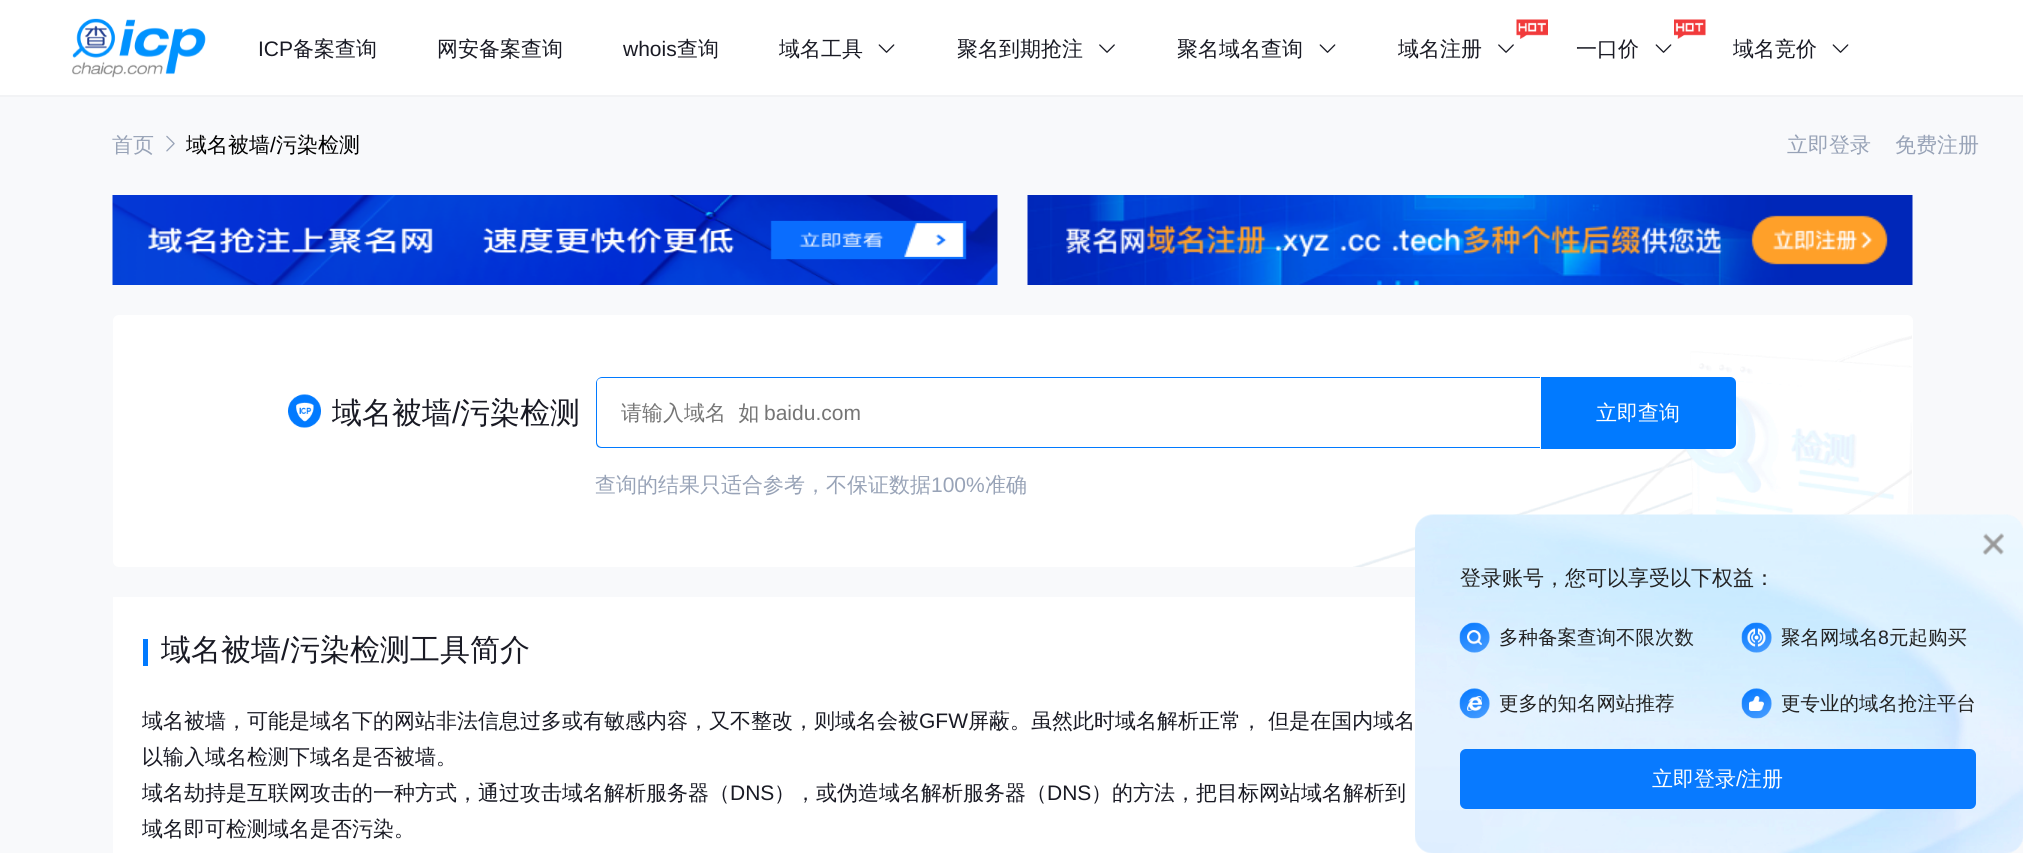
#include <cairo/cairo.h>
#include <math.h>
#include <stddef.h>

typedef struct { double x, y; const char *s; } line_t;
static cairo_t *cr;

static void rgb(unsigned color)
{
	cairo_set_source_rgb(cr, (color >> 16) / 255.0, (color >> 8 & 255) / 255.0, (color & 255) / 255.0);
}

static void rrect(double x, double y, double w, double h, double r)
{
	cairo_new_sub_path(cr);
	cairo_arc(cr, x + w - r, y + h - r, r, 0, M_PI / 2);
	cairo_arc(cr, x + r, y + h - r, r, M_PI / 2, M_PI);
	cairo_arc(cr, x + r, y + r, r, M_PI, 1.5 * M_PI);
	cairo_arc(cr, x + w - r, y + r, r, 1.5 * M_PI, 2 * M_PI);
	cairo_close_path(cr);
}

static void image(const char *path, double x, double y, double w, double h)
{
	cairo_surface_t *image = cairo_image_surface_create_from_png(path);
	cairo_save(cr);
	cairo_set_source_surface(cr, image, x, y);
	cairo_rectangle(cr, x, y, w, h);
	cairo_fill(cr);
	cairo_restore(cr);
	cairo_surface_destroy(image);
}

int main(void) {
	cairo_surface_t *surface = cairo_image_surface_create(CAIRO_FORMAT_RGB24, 2023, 853);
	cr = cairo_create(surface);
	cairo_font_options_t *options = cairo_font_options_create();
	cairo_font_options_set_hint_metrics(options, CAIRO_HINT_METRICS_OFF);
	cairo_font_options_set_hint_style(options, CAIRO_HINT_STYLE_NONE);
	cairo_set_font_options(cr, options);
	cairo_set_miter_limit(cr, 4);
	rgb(0xf8f9fb);
	cairo_paint(cr);
	image("img/1.png", 166, 135, 9, 17);
	rgb(0xffffff);
	cairo_rectangle(cr, 0, 0, 2023, 95);
	cairo_fill(cr);
	rgb(0xf2f3f5);
	cairo_rectangle(cr, 0, 95, 2023, 2);
	cairo_fill(cr);
	image("img/2.png", 72, 18, 134, 60);
	image("img/3.png", 878, 44, 17, 9);
	image("img/4.png", 1099, 44, 16, 9);
	image("img/3.png", 1319, 44, 17, 9);
	image("img/5.png", 1516, 19, 32, 20);
	image("img/4.png", 1498, 44, 16, 9);
	image("img/6.png", 1674, 19, 32, 20);
	image("img/3.png", 1655, 44, 17, 9);
	image("img/3.png", 1832, 44, 17, 9);
	image("img/7.png", 112, 195, 886, 90);
	image("img/8.png", 1027, 195, 886, 90);
	rgb(0xffffff);
	rrect(113, 315, 1800, 252, 6);
	cairo_fill(cr);
	image("img/9.png", 1353, 335, 559, 232);
	image("img/10.png", 288, 394, 33, 34);
	rgb(0x017aff);
	cairo_new_path(cr);
	cairo_move_to(cr, 602, 378);
	cairo_line_to(cr, 1540, 378);
	cairo_line_to(cr, 1540, 377);
	cairo_line_to(cr, 602, 377);
	cairo_curve_to(cr, 599, 377, 596, 380, 596, 383);
	cairo_line_to(cr, 596, 442);
	cairo_curve_to(cr, 596, 446, 598, 448, 602, 448);
	cairo_line_to(cr, 1540, 448);
	cairo_line_to(cr, 1540, 447);
	cairo_line_to(cr, 602, 447);
	cairo_curve_to(cr, 599, 447, 597, 445, 597, 442);
	cairo_line_to(cr, 597, 382);
	cairo_curve_to(cr, 597, 380, 599, 378, 602, 378);
	cairo_close_path(cr);
	cairo_fill(cr);
	cairo_new_path(cr);
	cairo_move_to(cr, 1541, 377);
	cairo_line_to(cr, 1730, 377);
	cairo_curve_to(cr, 1733.5, 377, 1736, 379.5, 1736, 383);
	cairo_line_to(cr, 1736, 443);
	cairo_curve_to(cr, 1736, 446.5, 1733.5, 449, 1730, 449);
	cairo_line_to(cr, 1541, 449);
	cairo_close_path(cr);
	cairo_fill(cr);
	rgb(0xffffff);
	cairo_rectangle(cr, 113, 597, 1320, 256);
	cairo_fill(cr);
	rgb(0x017aff);
	cairo_rectangle(cr, 143, 639, 5, 27);
	cairo_fill(cr);
	image("img/11.png", 1415, 514, 608, 339);
	image("img/12.png", 1982, 533, 22, 22);
	image("img/13.png", 1459, 622, 31, 31);
	image("img/14.png", 1741, 622, 31, 31);
	image("img/15.png", 1459, 688, 31, 31);
	image("img/16.png", 1741, 688, 31, 31);
	rgb(0x087aff);
	rrect(1460, 749, 516, 60, 6);
	cairo_fill(cr);
	cairo_select_font_face(cr, "WenQuanYi Zen Hei Medium", CAIRO_FONT_SLANT_NORMAL, CAIRO_FONT_WEIGHT_NORMAL);
	cairo_set_font_size(cr, 21);
	rgb(0x98a3b7);
	cairo_move_to(cr, 112, 152);
	cairo_show_text(cr, "首页");
	rgb(0x000000);
	cairo_move_to(cr, 186, 152);
	cairo_show_text(cr, "域名被墙");
	cairo_select_font_face(cr, "Liberation Sans", CAIRO_FONT_SLANT_NORMAL, CAIRO_FONT_WEIGHT_NORMAL);
	cairo_move_to(cr, 270, 152);
	cairo_show_text(cr, "/");
	cairo_select_font_face(cr, "WenQuanYi Zen Hei Medium", CAIRO_FONT_SLANT_NORMAL, CAIRO_FONT_WEIGHT_NORMAL);
	cairo_move_to(cr, 276, 152);
	cairo_show_text(cr, "污染检测");
	cairo_select_font_face(cr, "Liberation Sans", CAIRO_FONT_SLANT_NORMAL, CAIRO_FONT_WEIGHT_NORMAL);
	rgb(0x191a24);
	cairo_move_to(cr, 258, 56);
	cairo_show_text(cr, "ICP");
	cairo_select_font_face(cr, "WenQuanYi Zen Hei Medium", CAIRO_FONT_SLANT_NORMAL, CAIRO_FONT_WEIGHT_NORMAL);
	cairo_move_to(cr, 293, 56);
	cairo_show_text(cr, "备案查询");
	cairo_move_to(cr, 437, 56);
	cairo_show_text(cr, "网安备案查询");
	cairo_select_font_face(cr, "Liberation Sans", CAIRO_FONT_SLANT_NORMAL, CAIRO_FONT_WEIGHT_NORMAL);
	cairo_move_to(cr, 623, 56);
	cairo_show_text(cr, "whois");
	cairo_select_font_face(cr, "WenQuanYi Zen Hei Medium", CAIRO_FONT_SLANT_NORMAL, CAIRO_FONT_WEIGHT_NORMAL);
	{
		static const line_t items[] = {
			{677, 56, "查询"},
			{779, 56, "域名工具"},
			{957, 56, "聚名到期抢注"},
			{1177, 56, "聚名域名查询"},
			{1398, 56, "域名注册"},
			{1576, 56, "一口价"},
			{1733, 56, "域名竞价"},
		};
		for (size_t i = 0; i < sizeof items / sizeof *items; i++) {
			cairo_move_to(cr, items[i].x, items[i].y);
			cairo_show_text(cr, items[i].s);
		}
	}
	rgb(0x98a3b7);
	cairo_move_to(cr, 1787, 152);
	cairo_show_text(cr, "立即登录");
	cairo_move_to(cr, 1895, 152);
	cairo_show_text(cr, "免费注册");
	cairo_set_font_size(cr, 30);
	rgb(0x191a24);
	cairo_move_to(cr, 332, 423);
	cairo_show_text(cr, "域名被墙");
	cairo_select_font_face(cr, "Liberation Sans", CAIRO_FONT_SLANT_NORMAL, CAIRO_FONT_WEIGHT_NORMAL);
	cairo_move_to(cr, 452, 423);
	cairo_show_text(cr, "/");
	cairo_select_font_face(cr, "WenQuanYi Zen Hei Medium", CAIRO_FONT_SLANT_NORMAL, CAIRO_FONT_WEIGHT_NORMAL);
	cairo_move_to(cr, 460, 423);
	cairo_show_text(cr, "污染检测");
	cairo_set_font_size(cr, 21);
	rgb(0x757575);
	cairo_move_to(cr, 621, 420);
	cairo_show_text(cr, "请输入域名  如");
	cairo_select_font_face(cr, "Liberation Sans", CAIRO_FONT_SLANT_NORMAL, CAIRO_FONT_WEIGHT_NORMAL);
	cairo_move_to(cr, 764, 420);
	cairo_show_text(cr, "baidu.com");
	cairo_select_font_face(cr, "WenQuanYi Zen Hei Medium", CAIRO_FONT_SLANT_NORMAL, CAIRO_FONT_WEIGHT_NORMAL);
	rgb(0xffffff);
	cairo_move_to(cr, 1596, 420);
	cairo_show_text(cr, "立即查询");
	rgb(0x98a3b7);
	cairo_move_to(cr, 595, 492);
	cairo_show_text(cr, "查询的结果只适合参考，不保证数据");
	cairo_select_font_face(cr, "Liberation Sans", CAIRO_FONT_SLANT_NORMAL, CAIRO_FONT_WEIGHT_NORMAL);
	cairo_move_to(cr, 931, 492);
	cairo_show_text(cr, "100%");
	cairo_select_font_face(cr, "WenQuanYi Zen Hei Medium", CAIRO_FONT_SLANT_NORMAL, CAIRO_FONT_WEIGHT_NORMAL);
	cairo_move_to(cr, 985, 492);
	cairo_show_text(cr, "准确");
	cairo_set_font_size(cr, 30);
	rgb(0x191a24);
	cairo_move_to(cr, 161, 660);
	cairo_show_text(cr, "域名被墙");
	cairo_select_font_face(cr, "Liberation Sans", CAIRO_FONT_SLANT_NORMAL, CAIRO_FONT_WEIGHT_NORMAL);
	cairo_move_to(cr, 281, 660);
	cairo_show_text(cr, "/");
	cairo_select_font_face(cr, "WenQuanYi Zen Hei Medium", CAIRO_FONT_SLANT_NORMAL, CAIRO_FONT_WEIGHT_NORMAL);
	cairo_move_to(cr, 290, 660);
	cairo_show_text(cr, "污染检测工具简介");
	cairo_set_font_size(cr, 21);
	cairo_move_to(cr, 142, 728);
	cairo_show_text(cr, "域名被墙，可能是域名下的网站非法信息过多或有敏感内容，又不整改，则域名会被");
	cairo_select_font_face(cr, "Liberation Sans", CAIRO_FONT_SLANT_NORMAL, CAIRO_FONT_WEIGHT_NORMAL);
	cairo_move_to(cr, 919, 728);
	cairo_show_text(cr, "GFW");
	cairo_select_font_face(cr, "WenQuanYi Zen Hei Medium", CAIRO_FONT_SLANT_NORMAL, CAIRO_FONT_WEIGHT_NORMAL);
	{
		static const line_t items[] = {
			{968, 728, "屏蔽。虽然此时域名解析正常， 但是在国内域名"},
			{142, 764, "以输入域名检测下域名是否被墙。"},
			{142, 800, "域名劫持是互联网攻击的一种方式，通过攻击域名解析服务器（"},
		};
		for (size_t i = 0; i < sizeof items / sizeof *items; i++) {
			cairo_move_to(cr, items[i].x, items[i].y);
			cairo_show_text(cr, items[i].s);
		}
	}
	cairo_select_font_face(cr, "Liberation Sans", CAIRO_FONT_SLANT_NORMAL, CAIRO_FONT_WEIGHT_NORMAL);
	cairo_move_to(cr, 730, 800);
	cairo_show_text(cr, "DNS");
	cairo_select_font_face(cr, "WenQuanYi Zen Hei Medium", CAIRO_FONT_SLANT_NORMAL, CAIRO_FONT_WEIGHT_NORMAL);
	cairo_move_to(cr, 774, 800);
	cairo_show_text(cr, "），或伪造域名解析服务器（");
	cairo_select_font_face(cr, "Liberation Sans", CAIRO_FONT_SLANT_NORMAL, CAIRO_FONT_WEIGHT_NORMAL);
	cairo_move_to(cr, 1047, 800);
	cairo_show_text(cr, "DNS");
	cairo_select_font_face(cr, "WenQuanYi Zen Hei Medium", CAIRO_FONT_SLANT_NORMAL, CAIRO_FONT_WEIGHT_NORMAL);
	cairo_move_to(cr, 1091, 800);
	cairo_show_text(cr, "）的方法，把目标网站域名解析到");
	cairo_move_to(cr, 142, 836);
	cairo_show_text(cr, "域名即可检测域名是否污染。");
	rgb(0x222222);
	cairo_move_to(cr, 1460, 585);
	cairo_show_text(cr, "登录账号，您可以享受以下权益：");
	cairo_set_font_size(cr, 19.5);
	cairo_move_to(cr, 1499, 644);
	cairo_show_text(cr, "多种备案查询不限次数");
	cairo_move_to(cr, 1781, 644);
	cairo_show_text(cr, "聚名网域名");
	cairo_select_font_face(cr, "Liberation Sans", CAIRO_FONT_SLANT_NORMAL, CAIRO_FONT_WEIGHT_NORMAL);
	cairo_move_to(cr, 1878, 644);
	cairo_show_text(cr, "8");
	cairo_select_font_face(cr, "WenQuanYi Zen Hei Medium", CAIRO_FONT_SLANT_NORMAL, CAIRO_FONT_WEIGHT_NORMAL);
	{
		static const line_t items[] = {
			{1889, 644, "元起购买"},
			{1499, 710, "更多的知名网站推荐"},
			{1781, 710, "更专业的域名抢注平台"},
		};
		for (size_t i = 0; i < sizeof items / sizeof *items; i++) {
			cairo_move_to(cr, items[i].x, items[i].y);
			cairo_show_text(cr, items[i].s);
		}
	}
	cairo_set_font_size(cr, 21);
	rgb(0xffffff);
	cairo_move_to(cr, 1652, 786);
	cairo_show_text(cr, "立即登录");
	cairo_select_font_face(cr, "Liberation Sans", CAIRO_FONT_SLANT_NORMAL, CAIRO_FONT_WEIGHT_NORMAL);
	cairo_move_to(cr, 1736, 786);
	cairo_show_text(cr, "/");
	cairo_select_font_face(cr, "WenQuanYi Zen Hei Medium", CAIRO_FONT_SLANT_NORMAL, CAIRO_FONT_WEIGHT_NORMAL);
	cairo_move_to(cr, 1741, 786);
	cairo_show_text(cr, "注册");
	cairo_surface_write_to_png(surface, "page.png");
	cairo_font_options_destroy(options);
	cairo_destroy(cr);
	cairo_surface_destroy(surface);
	return 0;
}
